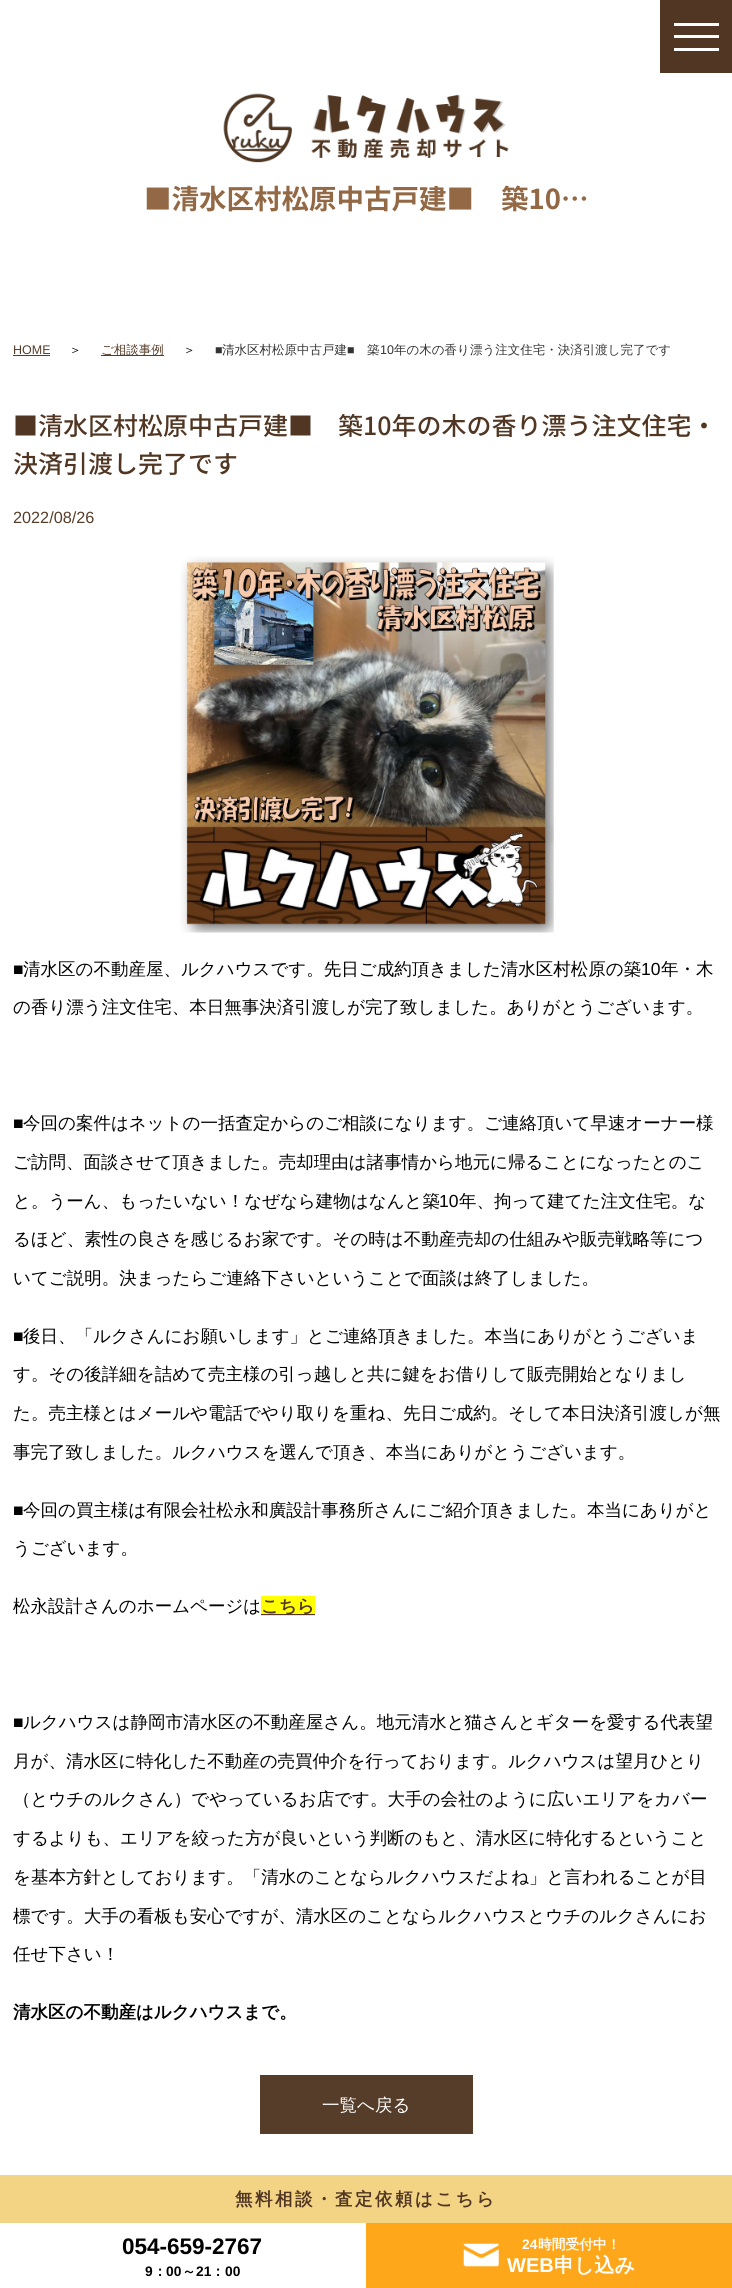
#include <cairo/cairo.h>
#include <math.h>
#include <stddef.h>

typedef struct { double x, y; const char *s; } line_t;
typedef struct { double x, y, w, h; unsigned color; } box_t;
static cairo_t *cr;

static void rgb(unsigned color)
{
	cairo_set_source_rgb(cr, (color >> 16) / 255.0, (color >> 8 & 255) / 255.0, (color & 255) / 255.0);
}

static void tracked(double x, double y, const char *s, double letter, double word)
{
	cairo_move_to(cr, x, y);
	while (*s) {
		char ch[5] = {0};
		int n = 0;
		do ch[n++] = *s++; while ((*s & 0xC0) == 0x80);
		cairo_show_text(cr, ch);
		cairo_rel_move_to(cr, letter + word * (*ch == ' '), 0);
	}
}

static void image(const char *path, double x, double y, double w, double h)
{
	cairo_surface_t *image = cairo_image_surface_create_from_png(path);
	cairo_save(cr);
	cairo_set_source_surface(cr, image, x, y);
	cairo_rectangle(cr, x, y, w, h);
	cairo_fill(cr);
	cairo_restore(cr);
	cairo_surface_destroy(image);
}

int main(void) {
	cairo_surface_t *surface = cairo_image_surface_create(CAIRO_FORMAT_RGB24, 732, 2288);
	cr = cairo_create(surface);
	cairo_font_options_t *options = cairo_font_options_create();
	cairo_font_options_set_hint_metrics(options, CAIRO_HINT_METRICS_OFF);
	cairo_font_options_set_hint_style(options, CAIRO_HINT_STYLE_NONE);
	cairo_set_font_options(cr, options);
	cairo_set_miter_limit(cr, 4);
	rgb(0xffffff);
	cairo_paint(cr);
	{
		static const box_t items[] = {
			{660, 0, 72, 73, 0x513723},
			{674, 23, 45, 3, 0xffffff},
			{674, 35, 45, 3, 0xffffff},
			{674, 48, 45, 3, 0xffffff},
		};
		for (size_t i = 0; i < sizeof items / sizeof *items; i++) {
			rgb(items[i].color);
			cairo_rectangle(cr, items[i].x, items[i].y, items[i].w, items[i].h);
			cairo_fill(cr);
		}
	}
	image("img/1.png", 223, 93, 286, 70);
	rgb(0x563d29);
	cairo_rectangle(cr, 13, 355, 37, 1);
	cairo_fill(cr);
	cairo_rectangle(cr, 101, 355, 63, 1);
	cairo_fill(cr);
	image("img/2.png", 180, 556, 374, 377);
	{
		static const box_t items[] = {
			{261, 1596, 54, 20, 0xffff00},
			{261, 1614, 54, 1, 0x513723},
			{260, 2075, 213, 59, 0x563d29},
			{0, 2175, 732, 48, 0xf3d485},
			{366, 2223, 366, 65, 0xffa71a},
		};
		for (size_t i = 0; i < sizeof items / sizeof *items; i++) {
			rgb(items[i].color);
			cairo_rectangle(cr, items[i].x, items[i].y, items[i].w, items[i].h);
			cairo_fill(cr);
		}
	}
	image("img/3.png", 463, 2243, 36, 24);
	cairo_select_font_face(cr, "Noto Sans CJK JP", CAIRO_FONT_SLANT_NORMAL, CAIRO_FONT_WEIGHT_BOLD);
	cairo_set_font_size(cr, 27.5);
	rgb(0x926845);
	cairo_move_to(cr, 144, 209);
	cairo_show_text(cr, "■清水区村松原中古戸建■");
	cairo_move_to(cr, 501, 209);
	cairo_show_text(cr, "築10…");
	cairo_select_font_face(cr, "Liberation Sans", CAIRO_FONT_SLANT_NORMAL, CAIRO_FONT_WEIGHT_NORMAL);
	cairo_set_font_size(cr, 12.5);
	rgb(0x563d29);
	cairo_move_to(cr, 13, 354);
	cairo_show_text(cr, "HOME");
	cairo_select_font_face(cr, "WenQuanYi Zen Hei Medium", CAIRO_FONT_SLANT_NORMAL, CAIRO_FONT_WEIGHT_NORMAL);
	rgb(0x000000);
	cairo_move_to(cr, 69, 354);
	cairo_show_text(cr, "＞");
	rgb(0x563d29);
	cairo_move_to(cr, 101, 354);
	cairo_show_text(cr, "ご相談事例");
	rgb(0x000000);
	cairo_move_to(cr, 183, 354);
	cairo_show_text(cr, "＞");
	cairo_select_font_face(cr, "Liberation Sans", CAIRO_FONT_SLANT_NORMAL, CAIRO_FONT_WEIGHT_NORMAL);
	rgb(0x333333);
	cairo_move_to(cr, 215, 354);
	cairo_show_text(cr, "■");
	cairo_select_font_face(cr, "WenQuanYi Zen Hei Medium", CAIRO_FONT_SLANT_NORMAL, CAIRO_FONT_WEIGHT_NORMAL);
	cairo_move_to(cr, 222, 354);
	cairo_show_text(cr, "清水区村松原中古戸建");
	cairo_select_font_face(cr, "Liberation Sans", CAIRO_FONT_SLANT_NORMAL, CAIRO_FONT_WEIGHT_NORMAL);
	cairo_move_to(cr, 347, 354);
	cairo_show_text(cr, "■");
	cairo_select_font_face(cr, "WenQuanYi Zen Hei Medium", CAIRO_FONT_SLANT_NORMAL, CAIRO_FONT_WEIGHT_NORMAL);
	cairo_move_to(cr, 367, 354);
	cairo_show_text(cr, "築");
	cairo_select_font_face(cr, "Liberation Sans", CAIRO_FONT_SLANT_NORMAL, CAIRO_FONT_WEIGHT_NORMAL);
	cairo_move_to(cr, 380, 354);
	cairo_show_text(cr, "10");
	cairo_select_font_face(cr, "WenQuanYi Zen Hei Medium", CAIRO_FONT_SLANT_NORMAL, CAIRO_FONT_WEIGHT_NORMAL);
	cairo_move_to(cr, 394, 354);
	cairo_show_text(cr, "年の木の香り漂う注文住宅・決済引渡し完了です");
	cairo_select_font_face(cr, "Noto Sans CJK JP Medium", CAIRO_FONT_SLANT_NORMAL, CAIRO_FONT_WEIGHT_NORMAL);
	cairo_set_font_size(cr, 25);
	rgb(0x513723);
	{
		static const line_t items[] = {
			{13, 435, "■清水区村松原中古戸建■"},
			{338, 435, "築10年の木の香り漂う注文住宅・"},
			{13, 473, "決済引渡し完了です"},
		};
		for (size_t i = 0; i < sizeof items / sizeof *items; i++) {
			cairo_move_to(cr, items[i].x, items[i].y);
			cairo_show_text(cr, items[i].s);
		}
	}
	cairo_select_font_face(cr, "Liberation Sans", CAIRO_FONT_SLANT_NORMAL, CAIRO_FONT_WEIGHT_NORMAL);
	cairo_set_font_size(cr, 16.25);
	rgb(0x563d29);
	cairo_move_to(cr, 13, 523);
	cairo_show_text(cr, "2022/08/26");
	cairo_set_font_size(cr, 17.5);
	rgb(0x000000);
	cairo_move_to(cr, 13, 975);
	cairo_show_text(cr, "■");
	cairo_select_font_face(cr, "WenQuanYi Zen Hei Medium", CAIRO_FONT_SLANT_NORMAL, CAIRO_FONT_WEIGHT_NORMAL);
	cairo_move_to(cr, 23, 975);
	cairo_show_text(cr, "清水区の不動産屋、ルクハウスです。先日ご成約頂きました清水区村松原の築");
	cairo_select_font_face(cr, "Liberation Sans", CAIRO_FONT_SLANT_NORMAL, CAIRO_FONT_WEIGHT_NORMAL);
	cairo_move_to(cr, 641, 975);
	cairo_show_text(cr, "10");
	cairo_select_font_face(cr, "WenQuanYi Zen Hei Medium", CAIRO_FONT_SLANT_NORMAL, CAIRO_FONT_WEIGHT_NORMAL);
	cairo_move_to(cr, 661, 975);
	cairo_show_text(cr, "年・木");
	cairo_move_to(cr, 13, 1013);
	cairo_show_text(cr, "の香り漂う注文住宅、本日無事決済引渡しが完了致しました。ありがとうございます。");
	cairo_select_font_face(cr, "Liberation Sans", CAIRO_FONT_SLANT_NORMAL, CAIRO_FONT_WEIGHT_NORMAL);
	cairo_move_to(cr, 13, 1129);
	cairo_show_text(cr, "■");
	cairo_select_font_face(cr, "WenQuanYi Zen Hei Medium", CAIRO_FONT_SLANT_NORMAL, CAIRO_FONT_WEIGHT_NORMAL);
	{
		static const line_t items[] = {
			{23, 1129, "今回の案件はネットの一括査定からのご相談になります。ご連絡頂いて早速オーナー様"},
			{13, 1168, "ご訪問、面談させて頂きました。売却理由は諸事情から地元に帰ることになったとのこ"},
			{13, 1207, "と。うーん、もったいない！なぜなら建物はなんと築"},
		};
		for (size_t i = 0; i < sizeof items / sizeof *items; i++) {
			cairo_move_to(cr, items[i].x, items[i].y);
			cairo_show_text(cr, items[i].s);
		}
	}
	cairo_select_font_face(cr, "Liberation Sans", CAIRO_FONT_SLANT_NORMAL, CAIRO_FONT_WEIGHT_NORMAL);
	cairo_move_to(cr, 439, 1207);
	cairo_show_text(cr, "10");
	cairo_select_font_face(cr, "WenQuanYi Zen Hei Medium", CAIRO_FONT_SLANT_NORMAL, CAIRO_FONT_WEIGHT_NORMAL);
	{
		static const line_t items[] = {
			{459, 1207, "年、拘って建てた注文住宅。な"},
			{13, 1245, "るほど、素性の良さを感じるお家です。その時は不動産売却の仕組みや販売戦略等につ"},
			{13, 1284, "いてご説明。決まったらご連絡下さいということで面談は終了しました。"},
		};
		for (size_t i = 0; i < sizeof items / sizeof *items; i++) {
			cairo_move_to(cr, items[i].x, items[i].y);
			cairo_show_text(cr, items[i].s);
		}
	}
	cairo_select_font_face(cr, "Liberation Sans", CAIRO_FONT_SLANT_NORMAL, CAIRO_FONT_WEIGHT_NORMAL);
	cairo_move_to(cr, 13, 1342);
	cairo_show_text(cr, "■");
	cairo_select_font_face(cr, "WenQuanYi Zen Hei Medium", CAIRO_FONT_SLANT_NORMAL, CAIRO_FONT_WEIGHT_NORMAL);
	{
		static const line_t items[] = {
			{23, 1342, "後日、「ルクさんにお願いします」とご連絡頂きました。本当にありがとうございま"},
			{13, 1380, "す。その後詳細を詰めて売主様の引っ越しと共に鍵をお借りして販売開始となりまし"},
			{13, 1419, "た。売主様とはメールや電話でやり取りを重ね、先日ご成約。そして本日決済引渡しが無"},
			{13, 1458, "事完了致しました。ルクハウスを選んで頂き、本当にありがとうございます。"},
		};
		for (size_t i = 0; i < sizeof items / sizeof *items; i++) {
			cairo_move_to(cr, items[i].x, items[i].y);
			cairo_show_text(cr, items[i].s);
		}
	}
	cairo_select_font_face(cr, "Liberation Sans", CAIRO_FONT_SLANT_NORMAL, CAIRO_FONT_WEIGHT_NORMAL);
	cairo_move_to(cr, 13, 1516);
	cairo_show_text(cr, "■");
	cairo_select_font_face(cr, "WenQuanYi Zen Hei Medium", CAIRO_FONT_SLANT_NORMAL, CAIRO_FONT_WEIGHT_NORMAL);
	{
		static const line_t items[] = {
			{23, 1516, "今回の買主様は有限会社松永和廣設計事務所さんにご紹介頂きました。本当にありがと"},
			{13, 1554, "うございます。"},
			{13, 1612, "松永設計さんのホームページは"},
		};
		for (size_t i = 0; i < sizeof items / sizeof *items; i++) {
			cairo_move_to(cr, items[i].x, items[i].y);
			cairo_show_text(cr, items[i].s);
		}
	}
	cairo_select_font_face(cr, "WenQuanYi Zen Hei", CAIRO_FONT_SLANT_NORMAL, CAIRO_FONT_WEIGHT_BOLD);
	rgb(0x513723);
	cairo_move_to(cr, 261, 1612);
	cairo_show_text(cr, "こちら");
	cairo_select_font_face(cr, "Liberation Sans", CAIRO_FONT_SLANT_NORMAL, CAIRO_FONT_WEIGHT_NORMAL);
	rgb(0x000000);
	cairo_move_to(cr, 13, 1728);
	cairo_show_text(cr, "■");
	cairo_select_font_face(cr, "WenQuanYi Zen Hei Medium", CAIRO_FONT_SLANT_NORMAL, CAIRO_FONT_WEIGHT_NORMAL);
	{
		static const line_t items[] = {
			{23, 1728, "ルクハウスは静岡市清水区の不動産屋さん。地元清水と猫さんとギターを愛する代表望"},
			{13, 1767, "月が、清水区に特化した不動産の売買仲介を行っております。ルクハウスは望月ひとり"},
			{13, 1805, "（とウチのルクさん）でやっているお店です。大手の会社のように広いエリアをカバー"},
			{13, 1844, "するよりも、エリアを絞った方が良いという判断のもと、清水区に特化するということ"},
			{13, 1883, "を基本方針としております。「清水のことならルクハウスだよね」と言われることが目"},
			{13, 1922, "標です。大手の看板も安心ですが、清水区のことならルクハウスとウチのルクさんにお"},
			{13, 1960, "任せ下さい！"},
		};
		for (size_t i = 0; i < sizeof items / sizeof *items; i++) {
			cairo_move_to(cr, items[i].x, items[i].y);
			cairo_show_text(cr, items[i].s);
		}
	}
	cairo_select_font_face(cr, "WenQuanYi Zen Hei", CAIRO_FONT_SLANT_NORMAL, CAIRO_FONT_WEIGHT_BOLD);
	cairo_move_to(cr, 13, 2018);
	cairo_show_text(cr, "清水区の不動産はルクハウスまで。");
	cairo_select_font_face(cr, "WenQuanYi Zen Hei Medium", CAIRO_FONT_SLANT_NORMAL, CAIRO_FONT_WEIGHT_NORMAL);
	rgb(0xffffff);
	cairo_move_to(cr, 322, 2111);
	cairo_show_text(cr, "一覧へ戻る");
	cairo_select_font_face(cr, "WenQuanYi Zen Hei", CAIRO_FONT_SLANT_NORMAL, CAIRO_FONT_WEIGHT_BOLD);
	rgb(0x513723);
	tracked(235, 2205, "無料相談・査定依頼はこちら", 2.5, 0);
	cairo_select_font_face(cr, "Liberation Sans", CAIRO_FONT_SLANT_NORMAL, CAIRO_FONT_WEIGHT_BOLD);
	cairo_set_font_size(cr, 22.5);
	rgb(0x000000);
	cairo_move_to(cr, 122, 2254);
	cairo_show_text(cr, "054-659-2767");
	cairo_set_font_size(cr, 13.75);
	cairo_move_to(cr, 145, 2276);
	cairo_show_text(cr, "9");
	cairo_select_font_face(cr, "WenQuanYi Zen Hei", CAIRO_FONT_SLANT_NORMAL, CAIRO_FONT_WEIGHT_BOLD);
	cairo_move_to(cr, 153, 2276);
	cairo_show_text(cr, "：");
	cairo_select_font_face(cr, "Liberation Sans", CAIRO_FONT_SLANT_NORMAL, CAIRO_FONT_WEIGHT_BOLD);
	cairo_move_to(cr, 166, 2276);
	cairo_show_text(cr, "00");
	cairo_select_font_face(cr, "WenQuanYi Zen Hei", CAIRO_FONT_SLANT_NORMAL, CAIRO_FONT_WEIGHT_BOLD);
	cairo_move_to(cr, 182, 2276);
	cairo_show_text(cr, "～");
	cairo_select_font_face(cr, "Liberation Sans", CAIRO_FONT_SLANT_NORMAL, CAIRO_FONT_WEIGHT_BOLD);
	cairo_move_to(cr, 196, 2276);
	cairo_show_text(cr, "21");
	cairo_select_font_face(cr, "WenQuanYi Zen Hei", CAIRO_FONT_SLANT_NORMAL, CAIRO_FONT_WEIGHT_BOLD);
	cairo_move_to(cr, 211, 2276);
	cairo_show_text(cr, "：");
	cairo_select_font_face(cr, "Liberation Sans", CAIRO_FONT_SLANT_NORMAL, CAIRO_FONT_WEIGHT_BOLD);
	cairo_move_to(cr, 225, 2276);
	cairo_show_text(cr, "00");
	rgb(0xffffff);
	cairo_move_to(cr, 522, 2249);
	cairo_show_text(cr, "24");
	cairo_select_font_face(cr, "WenQuanYi Zen Hei", CAIRO_FONT_SLANT_NORMAL, CAIRO_FONT_WEIGHT_BOLD);
	cairo_move_to(cr, 538, 2249);
	cairo_show_text(cr, "時間受付中！");
	cairo_select_font_face(cr, "Liberation Sans", CAIRO_FONT_SLANT_NORMAL, CAIRO_FONT_WEIGHT_BOLD);
	cairo_set_font_size(cr, 20);
	cairo_move_to(cr, 507, 2272);
	cairo_show_text(cr, "WEB");
	cairo_select_font_face(cr, "WenQuanYi Zen Hei", CAIRO_FONT_SLANT_NORMAL, CAIRO_FONT_WEIGHT_BOLD);
	cairo_move_to(cr, 554, 2272);
	cairo_show_text(cr, "申し込み");
	cairo_surface_write_to_png(surface, "page.png");
	cairo_font_options_destroy(options);
	cairo_destroy(cr);
	cairo_surface_destroy(surface);
	return 0;
}
